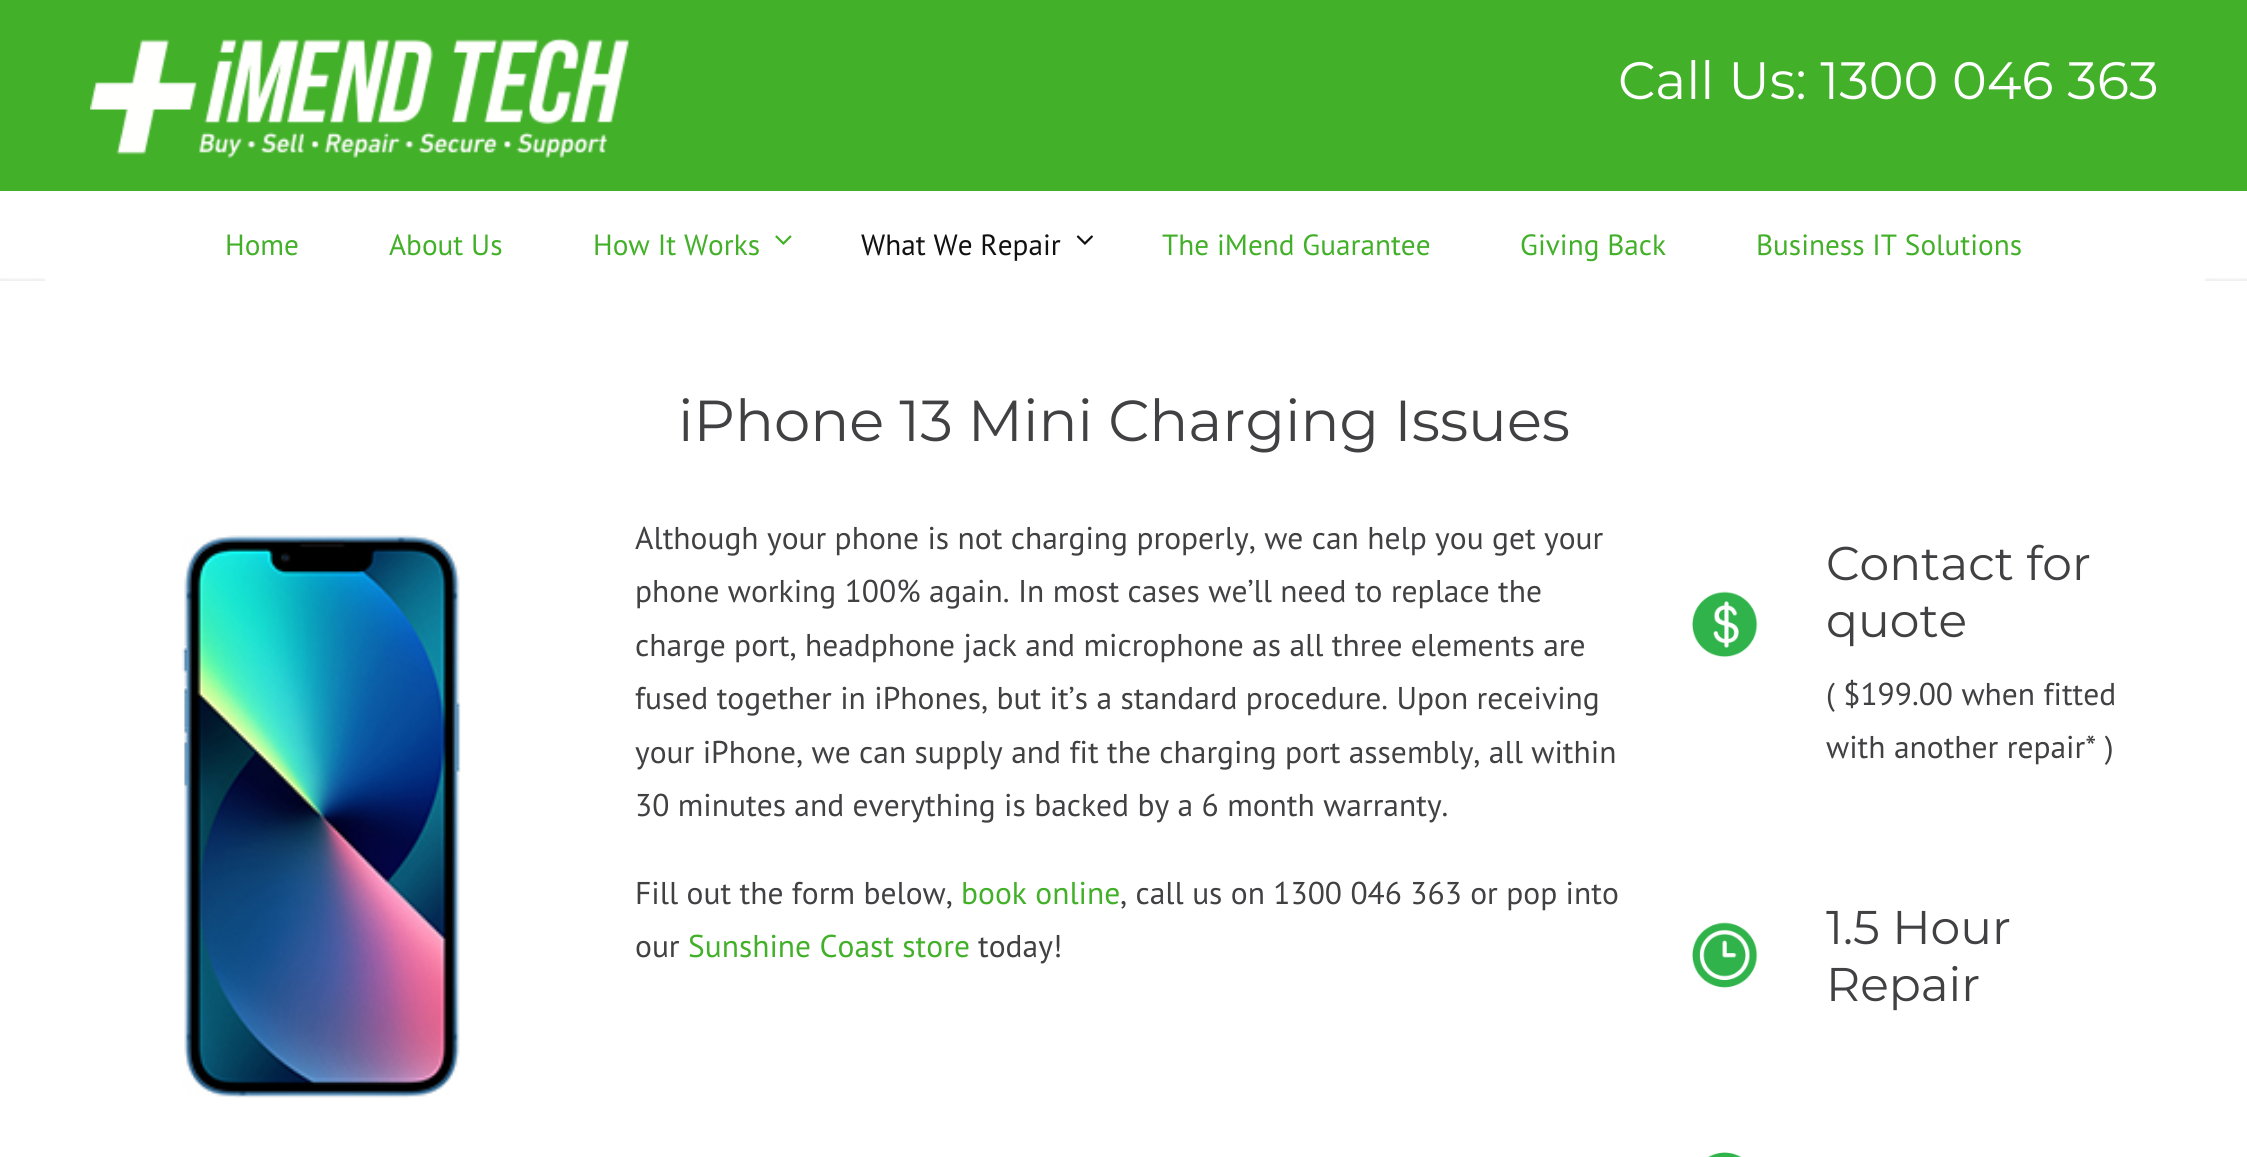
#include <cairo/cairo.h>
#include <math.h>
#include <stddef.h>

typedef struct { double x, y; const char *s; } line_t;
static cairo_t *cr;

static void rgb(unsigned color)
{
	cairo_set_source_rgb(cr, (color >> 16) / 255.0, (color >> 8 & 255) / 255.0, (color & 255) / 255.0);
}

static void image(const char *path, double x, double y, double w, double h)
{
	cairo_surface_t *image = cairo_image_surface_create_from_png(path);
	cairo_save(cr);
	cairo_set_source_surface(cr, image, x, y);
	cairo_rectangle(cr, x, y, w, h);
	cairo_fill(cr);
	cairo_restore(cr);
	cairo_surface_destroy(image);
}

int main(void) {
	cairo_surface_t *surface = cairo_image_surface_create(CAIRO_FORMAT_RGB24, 2247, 1157);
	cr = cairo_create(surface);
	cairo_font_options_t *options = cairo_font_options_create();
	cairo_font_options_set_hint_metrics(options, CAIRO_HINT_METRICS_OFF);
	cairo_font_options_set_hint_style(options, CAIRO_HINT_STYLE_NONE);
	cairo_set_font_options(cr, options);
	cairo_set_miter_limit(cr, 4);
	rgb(0xffffff);
	cairo_paint(cr);
	rgb(0x43b02a);
	cairo_rectangle(cr, 0, 0, 2247, 191);
	cairo_fill(cr);
	image("img/1.png", 90, 38, 540, 120);
	image("img/4.png", 0, 278, 2247, 3);
	rgb(0xffffff);
	cairo_rectangle(cr, 45, 278, 2160, 3);
	cairo_fill(cr);
	image("img/2.png", 775, 235, 17, 10);
	image("img/3.png", 1076, 235, 17, 10);
	image("img/5.png", 182, 535, 279, 563);
	image("img/6.png", 1692, 591, 66, 66);
	image("img/7.png", 1692, 922, 66, 66);
	image("img/8.png", 1708, 1152, 34, 5);
	cairo_select_font_face(cr, "Montserrat Thin", CAIRO_FONT_SLANT_NORMAL, CAIRO_FONT_WEIGHT_NORMAL);
	cairo_set_font_size(cr, 52.5);
	cairo_move_to(cr, 1618, 99);
	cairo_show_text(cr, "Call Us: 1300 046 363");
	cairo_select_font_face(cr, "PT Sans", CAIRO_FONT_SLANT_NORMAL, CAIRO_FONT_WEIGHT_NORMAL);
	cairo_set_font_size(cr, 29.25);
	rgb(0x43b02a);
	{
		static const line_t items[] = {
			{225, 255, "Home"},
			{389, 255, "About Us"},
			{593, 255, "How It Works"},
		};
		for (size_t i = 0; i < sizeof items / sizeof *items; i++) {
			cairo_move_to(cr, items[i].x, items[i].y);
			cairo_show_text(cr, items[i].s);
		}
	}
	rgb(0x111111);
	cairo_move_to(cr, 861, 255);
	cairo_show_text(cr, "What We Repair");
	rgb(0x43b02a);
	{
		static const line_t items[] = {
			{1162, 255, "The iMend Guarantee"},
			{1520, 255, "Giving Back"},
			{1756, 255, "Business IT Solutions"},
		};
		for (size_t i = 0; i < sizeof items / sizeof *items; i++) {
			cairo_move_to(cr, items[i].x, items[i].y);
			cairo_show_text(cr, items[i].s);
		}
	}
	cairo_select_font_face(cr, "Montserrat Thin", CAIRO_FONT_SLANT_NORMAL, CAIRO_FONT_WEIGHT_NORMAL);
	cairo_set_font_size(cr, 57.75);
	rgb(0x414042);
	cairo_move_to(cr, 678, 441);
	cairo_show_text(cr, "iPhone 13 Mini Charging Issues");
	cairo_select_font_face(cr, "PT Sans", CAIRO_FONT_SLANT_NORMAL, CAIRO_FONT_WEIGHT_NORMAL);
	cairo_set_font_size(cr, 31.5);
	{
		static const line_t items[] = {
			{635, 549, "Although your phone is not charging properly, we can help you get your"},
			{635, 602, "phone working 100% again. In most cases we’ll need to replace the"},
			{635, 656, "charge port, headphone jack and microphone as all three elements are"},
			{635, 709, "fused together in iPhones, but it’s a standard procedure. Upon receiving"},
			{635, 763, "your iPhone, we can supply and fit the charging port assembly, all within"},
			{635, 816, "30 minutes and everything is backed by a 6 month warranty."},
			{635, 904, "Fill out the form below,"},
		};
		for (size_t i = 0; i < sizeof items / sizeof *items; i++) {
			cairo_move_to(cr, items[i].x, items[i].y);
			cairo_show_text(cr, items[i].s);
		}
	}
	rgb(0x43b02a);
	cairo_move_to(cr, 961, 904);
	cairo_show_text(cr, "book online");
	rgb(0x414042);
	cairo_move_to(cr, 1120, 904);
	cairo_show_text(cr, ", call us on 1300 046 363 or pop into");
	cairo_move_to(cr, 635, 957);
	cairo_show_text(cr, "our");
	rgb(0x43b02a);
	cairo_move_to(cr, 688, 957);
	cairo_show_text(cr, "Sunshine Coast store");
	rgb(0x414042);
	cairo_move_to(cr, 978, 957);
	cairo_show_text(cr, "today!");
	cairo_select_font_face(cr, "Montserrat Thin", CAIRO_FONT_SLANT_NORMAL, CAIRO_FONT_WEIGHT_NORMAL);
	cairo_set_font_size(cr, 47.25);
	cairo_move_to(cr, 1826, 580);
	cairo_show_text(cr, "Contact for");
	cairo_move_to(cr, 1826, 637);
	cairo_show_text(cr, "quote");
	cairo_select_font_face(cr, "PT Sans", CAIRO_FONT_SLANT_NORMAL, CAIRO_FONT_WEIGHT_NORMAL);
	cairo_set_font_size(cr, 31.5);
	cairo_move_to(cr, 1826, 705);
	cairo_show_text(cr, "( $199.00 when fitted");
	cairo_move_to(cr, 1826, 758);
	cairo_show_text(cr, "with another repair* )");
	cairo_select_font_face(cr, "Montserrat Thin", CAIRO_FONT_SLANT_NORMAL, CAIRO_FONT_WEIGHT_NORMAL);
	cairo_set_font_size(cr, 47.25);
	cairo_move_to(cr, 1826, 944);
	cairo_show_text(cr, "1.5 Hour");
	cairo_move_to(cr, 1826, 1001);
	cairo_show_text(cr, "Repair");
	cairo_surface_write_to_png(surface, "page.png");
	cairo_font_options_destroy(options);
	cairo_destroy(cr);
	cairo_surface_destroy(surface);
	return 0;
}
